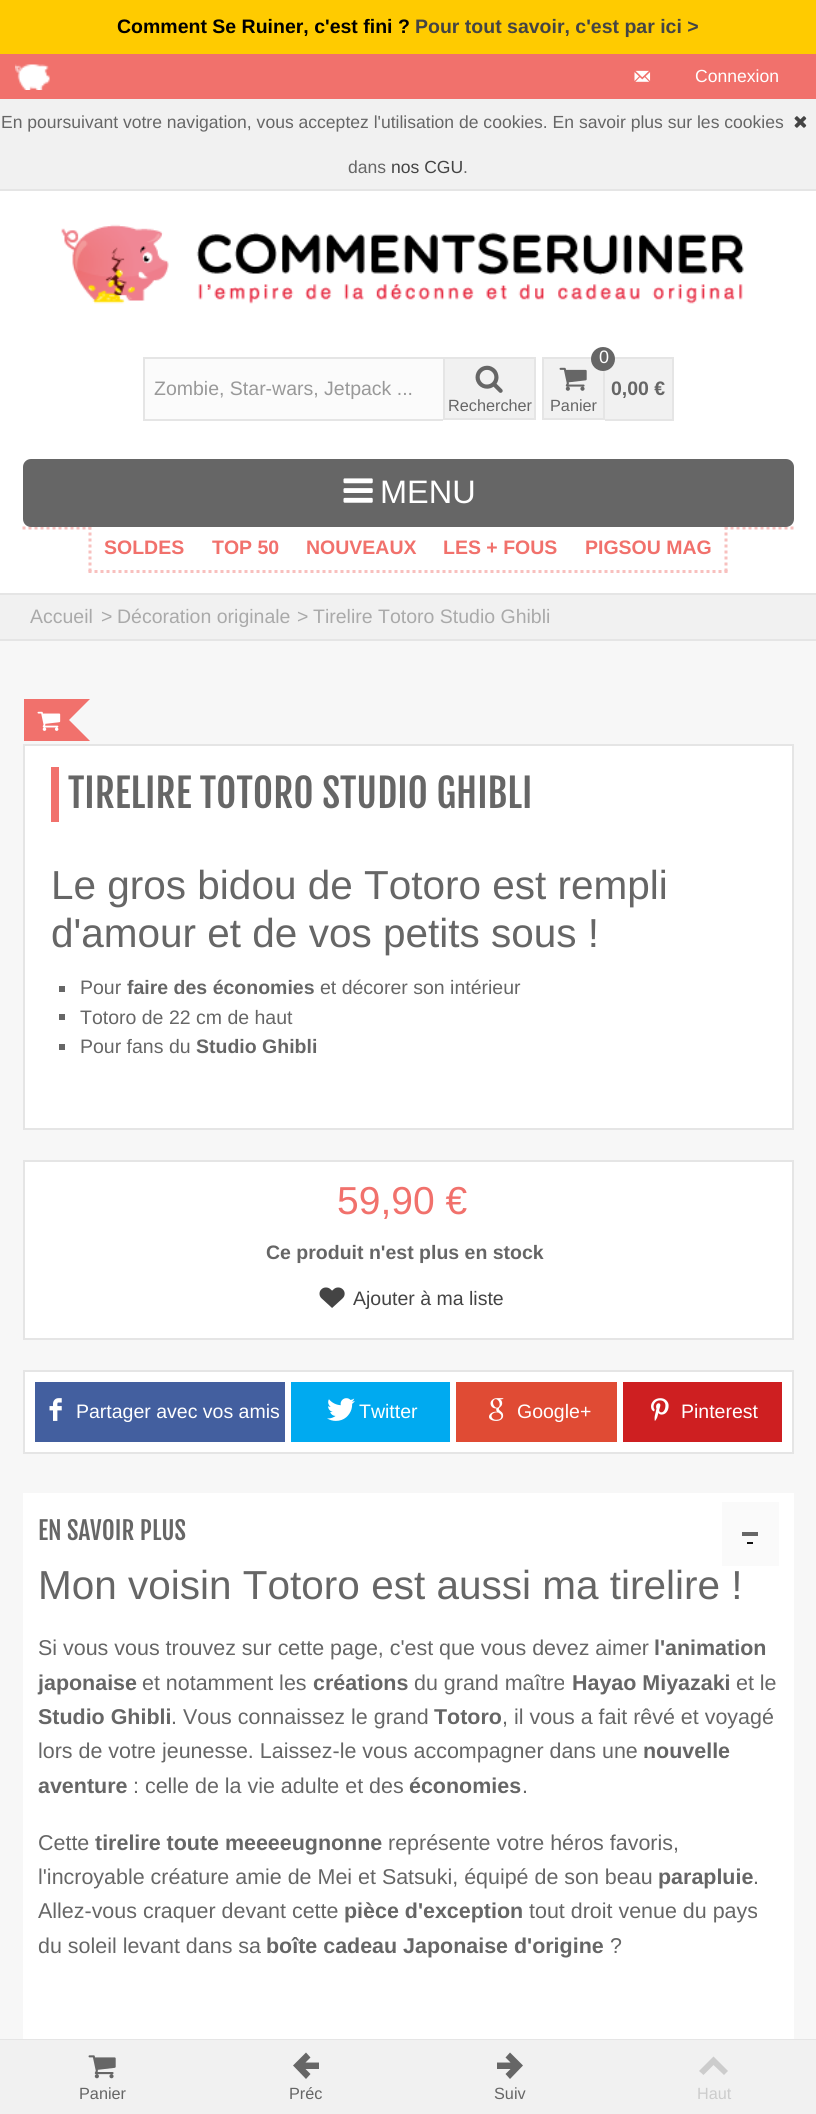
#include <cairo/cairo.h>
#include <math.h>
#include <stddef.h>

typedef struct { double x, y; const char *s; } line_t;
typedef struct { double x, y, w, h; unsigned color; } box_t;
static cairo_t *cr;

static void rgb(unsigned color)
{
	cairo_set_source_rgb(cr, (color >> 16) / 255.0, (color >> 8 & 255) / 255.0, (color & 255) / 255.0);
}

static void rrect(double x, double y, double w, double h, double r)
{
	cairo_new_sub_path(cr);
	cairo_arc(cr, x + w - r, y + h - r, r, 0, M_PI / 2);
	cairo_arc(cr, x + r, y + h - r, r, M_PI / 2, M_PI);
	cairo_arc(cr, x + r, y + r, r, M_PI, 1.5 * M_PI);
	cairo_arc(cr, x + w - r, y + r, r, 1.5 * M_PI, 2 * M_PI);
	cairo_close_path(cr);
}

static void image(const char *path, double x, double y, double w, double h)
{
	cairo_surface_t *image = cairo_image_surface_create_from_png(path);
	cairo_save(cr);
	cairo_set_source_surface(cr, image, x, y);
	cairo_rectangle(cr, x, y, w, h);
	cairo_fill(cr);
	cairo_restore(cr);
	cairo_surface_destroy(image);
}

int main(void) {
	cairo_surface_t *surface = cairo_image_surface_create(CAIRO_FORMAT_RGB24, 816, 2114);
	cr = cairo_create(surface);
	cairo_font_options_t *options = cairo_font_options_create();
	cairo_font_options_set_hint_metrics(options, CAIRO_HINT_METRICS_OFF);
	cairo_font_options_set_hint_style(options, CAIRO_HINT_STYLE_NONE);
	cairo_set_font_options(cr, options);
	cairo_set_miter_limit(cr, 4);
	rgb(0xffffff);
	cairo_paint(cr);
	rgb(0xffcb00);
	cairo_rectangle(cr, 0, 0, 816, 54);
	cairo_fill(cr);
	rgb(0xf1716c);
	cairo_rectangle(cr, 0, 54, 816, 45);
	cairo_fill(cr);
	image("img/1.png", 15, 64, 35, 26);
	image("img/2.png", 634, 70, 17, 12);
	rgb(0xf1f1f1);
	cairo_rectangle(cr, 0, 99, 816, 90);
	cairo_fill(cr);
	rgb(0xe5e5e5);
	cairo_rectangle(cr, 0, 189, 816, 2);
	cairo_fill(cr);
	image("img/3.png", 794, 116, 13, 12);
	image("img/4.png", 61, 224, 683, 80);
	{
		static const box_t items[] = {
			{145, 359, 298, 60, 0xfbfbfb},
			{143, 357, 300, 2, 0xe5e5e5},
			{143, 419, 300, 2, 0xe5e5e5},
			{143, 357, 2, 63, 0xe5e5e5},
		};
		for (size_t i = 0; i < sizeof items / sizeof *items; i++) {
			rgb(items[i].color);
			cairo_rectangle(cr, items[i].x, items[i].y, items[i].w, items[i].h);
			cairo_fill(cr);
		}
	}
	rgb(0xf1f1f1);
	cairo_rectangle(cr, 444, 358, 91, 61);
	cairo_fill_preserve(cr);
	rgb(0xe5e5e5);
	cairo_stroke(cr);
	image("img/5.png", 475, 365, 28, 28);
	rgb(0xf1f1f1);
	cairo_rectangle(cr, 543, 358, 61, 61);
	cairo_fill_preserve(cr);
	rgb(0xe5e5e5);
	cairo_stroke(cr);
	rgb(0xf1f1f1);
	cairo_rectangle(cr, 605, 359, 67, 60);
	cairo_fill(cr);
	rgb(0xe5e5e5);
	cairo_rectangle(cr, 614, 357, 60, 2);
	cairo_fill(cr);
	rgb(0x666666);
	cairo_arc(cr, 603, 359, 12, 0, 2 * M_PI);
	cairo_fill(cr);
	image("img/6.png", 559, 367, 28, 24);
	rgb(0xe5e5e5);
	cairo_rectangle(cr, 672, 357, 2, 63);
	cairo_fill(cr);
	cairo_rectangle(cr, 605, 419, 69, 2);
	cairo_fill(cr);
	cairo_new_path(cr);
	cairo_move_to(cr, 22.5, 528);
	cairo_line_to(cr, 793.5, 528);
	rgb(0xf8c0be);
	cairo_set_line_width(cr, 3);
	cairo_set_dash(cr, (double[]){3, 3}, 2, 0);
	cairo_stroke(cr);
	rgb(0xffffff);
	cairo_new_path(cr);
	cairo_move_to(cr, 88, 526);
	cairo_line_to(cr, 728, 526);
	cairo_line_to(cr, 724, 530);
	cairo_line_to(cr, 92, 530);
	cairo_close_path(cr);
	cairo_fill(cr);
	cairo_new_path(cr);
	cairo_move_to(cr, 726, 526.5);
	cairo_line_to(cr, 726, 573);
	rgb(0xf8c0be);
	cairo_stroke(cr);
	cairo_new_path(cr);
	cairo_move_to(cr, 88.5, 571.5);
	cairo_line_to(cr, 727.5, 571.5);
	cairo_stroke(cr);
	cairo_new_path(cr);
	cairo_move_to(cr, 90, 526.5);
	cairo_line_to(cr, 90, 573);
	cairo_stroke(cr);
	rgb(0x666666);
	rrect(23, 459, 771, 68, 8);
	cairo_fill(cr);
	image("img/7.png", 343, 478, 30, 25);
	{
		static const box_t items[] = {
			{0, 595, 816, 44, 0xf1f1f1},
			{0, 593, 816, 2, 0xe5e5e5},
			{0, 639, 816, 2, 0xe5e5e5},
			{0, 641, 816, 1398, 0xf7f7f7},
		};
		for (size_t i = 0; i < sizeof items / sizeof *items; i++) {
			rgb(items[i].color);
			cairo_rectangle(cr, items[i].x, items[i].y, items[i].w, items[i].h);
			cairo_fill(cr);
		}
	}
	rgb(0xf1716c);
	cairo_new_path(cr);
	cairo_move_to(cr, 24, 699);
	cairo_line_to(cr, 90, 699);
	cairo_line_to(cr, 69, 720);
	cairo_close_path(cr);
	cairo_fill(cr);
	cairo_new_path(cr);
	cairo_move_to(cr, 90, 741);
	cairo_line_to(cr, 24, 741);
	cairo_line_to(cr, 69, 720);
	cairo_close_path(cr);
	cairo_fill(cr);
	cairo_rectangle(cr, 24, 699, 45, 42);
	cairo_fill(cr);
	image("img/8.png", 37, 711, 24, 20);
	rgb(0xffffff);
	cairo_rectangle(cr, 24, 745, 769, 384);
	cairo_fill_preserve(cr);
	rgb(0xe5e5e5);
	cairo_set_line_width(cr, 2);
	cairo_set_dash(cr, NULL, 0, 0);
	cairo_stroke(cr);
	{
		static const box_t items[] = {
			{51, 767, 8, 55, 0xf1716c},
			{59, 986, 6, 6, 0x666666},
			{59, 1014, 6, 6, 0x666666},
			{59, 1044, 6, 6, 0x666666},
		};
		for (size_t i = 0; i < sizeof items / sizeof *items; i++) {
			rgb(items[i].color);
			cairo_rectangle(cr, items[i].x, items[i].y, items[i].w, items[i].h);
			cairo_fill(cr);
		}
	}
	rgb(0xffffff);
	cairo_rectangle(cr, 24, 1161, 769, 178);
	cairo_fill_preserve(cr);
	rgb(0xe5e5e5);
	cairo_stroke(cr);
	image("img/9.png", 319, 1287, 26, 21);
	rgb(0xffffff);
	cairo_rectangle(cr, 24, 1371, 769, 82);
	cairo_fill_preserve(cr);
	rgb(0xe5e5e5);
	cairo_stroke(cr);
	rgb(0x435f9f);
	cairo_rectangle(cr, 35, 1382, 250, 60);
	cairo_fill(cr);
	image("img/10.png", 49, 1398, 13, 23);
	rgb(0x00aaf0);
	cairo_rectangle(cr, 291, 1382, 159, 60);
	cairo_fill(cr);
	image("img/11.png", 327, 1398, 28, 23);
	rgb(0xe04b34);
	cairo_rectangle(cr, 456, 1382, 161, 60);
	cairo_fill(cr);
	image("img/12.png", 489, 1398, 15, 23);
	rgb(0xce1f21);
	cairo_rectangle(cr, 623, 1382, 159, 60);
	cairo_fill(cr);
	image("img/13.png", 651, 1398, 18, 23);
	{
		static const box_t items[] = {
			{23, 1493, 771, 546, 0xffffff},
			{722, 1502, 57, 64, 0xfafafa},
			{742, 1532, 16, 4, 0x666666},
			{747, 1542, 6, 2, 0x111111},
			{0, 2039, 816, 1, 0xe5e5e5},
			{0, 2040, 816, 74, 0xf1f1f1},
		};
		for (size_t i = 0; i < sizeof items / sizeof *items; i++) {
			rgb(items[i].color);
			cairo_rectangle(cr, items[i].x, items[i].y, items[i].w, items[i].h);
			cairo_fill(cr);
		}
	}
	image("img/14.png", 88, 2055, 28, 24);
	rgb(0x666666);
	cairo_new_path(cr);
	cairo_move_to(cr, 306, 2079);
	cairo_line_to(cr, 293, 2065.5);
	cairo_line_to(cr, 306, 2052.5);
	cairo_line_to(cr, 310.5, 2057.5);
	cairo_line_to(cr, 305.5, 2062.5);
	cairo_line_to(cr, 319, 2062.5);
	cairo_line_to(cr, 319, 2069);
	cairo_line_to(cr, 305.5, 2069);
	cairo_line_to(cr, 310.5, 2074);
	cairo_close_path(cr);
	cairo_fill(cr);
	cairo_new_path(cr);
	cairo_move_to(cr, 510, 2052.5);
	cairo_line_to(cr, 523, 2065.5);
	cairo_line_to(cr, 510, 2079);
	cairo_line_to(cr, 505.5, 2074);
	cairo_line_to(cr, 510.5, 2069);
	cairo_line_to(cr, 497, 2069);
	cairo_line_to(cr, 497, 2062.5);
	cairo_line_to(cr, 510.5, 2062.5);
	cairo_line_to(cr, 505.5, 2057.5);
	cairo_close_path(cr);
	cairo_fill(cr);
	rgb(0xcccccc);
	cairo_new_path(cr);
	cairo_move_to(cr, 699, 2071);
	cairo_line_to(cr, 713.5, 2056.5);
	cairo_line_to(cr, 728, 2071);
	cairo_line_to(cr, 724, 2075);
	cairo_line_to(cr, 713.5, 2065);
	cairo_line_to(cr, 703.5, 2075);
	cairo_close_path(cr);
	cairo_fill(cr);
	cairo_select_font_face(cr, "Liberation Sans", CAIRO_FONT_SLANT_NORMAL, CAIRO_FONT_WEIGHT_BOLD);
	cairo_set_font_size(cr, 19.5);
	rgb(0x000000);
	cairo_move_to(cr, 117, 33);
	cairo_show_text(cr, "Comment Se Ruiner, c'est fini ?");
	rgb(0x444444);
	cairo_move_to(cr, 415, 33);
	cairo_show_text(cr, "Pour tout savoir, c'est par ici >");
	cairo_select_font_face(cr, "Liberation Sans", CAIRO_FONT_SLANT_NORMAL, CAIRO_FONT_WEIGHT_NORMAL);
	cairo_set_font_size(cr, 17.55);
	rgb(0xffffff);
	cairo_move_to(cr, 695, 82);
	cairo_show_text(cr, "Connexion");
	rgb(0x666666);
	cairo_move_to(cr, 1, 128);
	cairo_show_text(cr, "En poursuivant votre navigation, vous acceptez l'utilisation de cookies. En savoir plus sur les cookies");
	cairo_move_to(cr, 348, 173);
	cairo_show_text(cr, "dans");
	rgb(0x444444);
	cairo_move_to(cr, 391, 173);
	cairo_show_text(cr, "nos CGU");
	rgb(0x666666);
	cairo_move_to(cr, 463, 173);
	cairo_show_text(cr, ".");
	cairo_set_font_size(cr, 19.5);
	rgb(0x999999);
	cairo_move_to(cr, 154, 395);
	cairo_show_text(cr, "Zombie, Star-wars, Jetpack ...");
	cairo_set_font_size(cr, 16.25);
	rgb(0x666666);
	cairo_move_to(cr, 448, 411);
	cairo_show_text(cr, "Rechercher");
	cairo_set_font_size(cr, 18);
	rgb(0xffffff);
	cairo_move_to(cr, 599, 363);
	cairo_show_text(cr, "0");
	cairo_set_font_size(cr, 16.25);
	rgb(0x666666);
	cairo_move_to(cr, 550, 411);
	cairo_show_text(cr, "Panier");
	cairo_select_font_face(cr, "Liberation Sans", CAIRO_FONT_SLANT_NORMAL, CAIRO_FONT_WEIGHT_BOLD);
	cairo_set_font_size(cr, 19.5);
	cairo_move_to(cr, 611, 395);
	cairo_show_text(cr, "0,00 €");
	cairo_select_font_face(cr, "Liberation Sans", CAIRO_FONT_SLANT_NORMAL, CAIRO_FONT_WEIGHT_NORMAL);
	cairo_set_font_size(cr, 32.5);
	rgb(0xffffff);
	cairo_move_to(cr, 380, 503);
	cairo_show_text(cr, "MENU");
	cairo_select_font_face(cr, "Liberation Sans", CAIRO_FONT_SLANT_NORMAL, CAIRO_FONT_WEIGHT_BOLD);
	cairo_set_font_size(cr, 19.5);
	rgb(0xf1716c);
	{
		static const line_t items[] = {
			{104, 554, "SOLDES"},
			{212, 554, "TOP 50"},
			{306, 554, "NOUVEAUX"},
			{443, 554, "LES + FOUS"},
			{585, 554, "PIGSOU MAG"},
		};
		for (size_t i = 0; i < sizeof items / sizeof *items; i++) {
			cairo_move_to(cr, items[i].x, items[i].y);
			cairo_show_text(cr, items[i].s);
		}
	}
	cairo_select_font_face(cr, "Liberation Sans", CAIRO_FONT_SLANT_NORMAL, CAIRO_FONT_WEIGHT_NORMAL);
	rgb(0xaaaaaa);
	{
		static const line_t items[] = {
			{30, 623, "Accueil"},
			{101, 623, ">"},
			{117, 623, "Décoration originale"},
			{297, 623, ">"},
			{313, 623, "Tirelire Totoro Studio Ghibli"},
		};
		for (size_t i = 0; i < sizeof items / sizeof *items; i++) {
			cairo_move_to(cr, items[i].x, items[i].y);
			cairo_show_text(cr, items[i].s);
		}
	}
	cairo_select_font_face(cr, "Fjalla One", CAIRO_FONT_SLANT_NORMAL, CAIRO_FONT_WEIGHT_NORMAL);
	cairo_set_font_size(cr, 39);
	rgb(0x666666);
	cairo_move_to(cr, 68, 808);
	cairo_show_text(cr, "TIRELIRE TOTORO STUDIO GHIBLI");
	cairo_select_font_face(cr, "Liberation Sans", CAIRO_FONT_SLANT_NORMAL, CAIRO_FONT_WEIGHT_NORMAL);
	cairo_set_font_size(cr, 40.5);
	cairo_move_to(cr, 51, 899);
	cairo_show_text(cr, "Le gros bidou de Totoro est rempli");
	cairo_move_to(cr, 51, 947);
	cairo_show_text(cr, "d'amour et de vos petits sous !");
	cairo_set_font_size(cr, 19.5);
	cairo_move_to(cr, 80, 994);
	cairo_show_text(cr, "Pour");
	cairo_select_font_face(cr, "Liberation Sans", CAIRO_FONT_SLANT_NORMAL, CAIRO_FONT_WEIGHT_BOLD);
	cairo_move_to(cr, 127, 994);
	cairo_show_text(cr, "faire des économies");
	cairo_select_font_face(cr, "Liberation Sans", CAIRO_FONT_SLANT_NORMAL, CAIRO_FONT_WEIGHT_NORMAL);
	{
		static const line_t items[] = {
			{320, 994, "et décorer son intérieur"},
			{80, 1024, "Totoro de 22 cm de haut"},
			{80, 1053, "Pour fans du"},
		};
		for (size_t i = 0; i < sizeof items / sizeof *items; i++) {
			cairo_move_to(cr, items[i].x, items[i].y);
			cairo_show_text(cr, items[i].s);
		}
	}
	cairo_select_font_face(cr, "Liberation Sans", CAIRO_FONT_SLANT_NORMAL, CAIRO_FONT_WEIGHT_BOLD);
	cairo_move_to(cr, 196, 1053);
	cairo_show_text(cr, "Studio Ghibli");
	cairo_select_font_face(cr, "Liberation Sans", CAIRO_FONT_SLANT_NORMAL, CAIRO_FONT_WEIGHT_NORMAL);
	cairo_set_font_size(cr, 39);
	rgb(0xf1716c);
	cairo_move_to(cr, 337, 1214);
	cairo_show_text(cr, "59,90 €");
	cairo_select_font_face(cr, "Liberation Sans", CAIRO_FONT_SLANT_NORMAL, CAIRO_FONT_WEIGHT_BOLD);
	cairo_set_font_size(cr, 19.5);
	rgb(0x666666);
	cairo_move_to(cr, 266, 1259);
	cairo_show_text(cr, "Ce produit n'est plus en stock");
	cairo_select_font_face(cr, "Liberation Sans", CAIRO_FONT_SLANT_NORMAL, CAIRO_FONT_WEIGHT_NORMAL);
	rgb(0x444444);
	cairo_move_to(cr, 353, 1305);
	cairo_show_text(cr, "Ajouter à ma liste");
	rgb(0xffffff);
	{
		static const line_t items[] = {
			{76, 1418, "Partager avec vos amis"},
			{359, 1418, "Twitter"},
			{517, 1418, "Google+"},
			{681, 1418, "Pinterest"},
		};
		for (size_t i = 0; i < sizeof items / sizeof *items; i++) {
			cairo_move_to(cr, items[i].x, items[i].y);
			cairo_show_text(cr, items[i].s);
		}
	}
	cairo_select_font_face(cr, "Fjalla One", CAIRO_FONT_SLANT_NORMAL, CAIRO_FONT_WEIGHT_NORMAL);
	cairo_set_font_size(cr, 25);
	rgb(0x666666);
	cairo_move_to(cr, 38, 1540);
	cairo_show_text(cr, "EN SAVOIR PLUS");
	cairo_select_font_face(cr, "Liberation Sans", CAIRO_FONT_SLANT_NORMAL, CAIRO_FONT_WEIGHT_NORMAL);
	cairo_set_font_size(cr, 40.5);
	cairo_move_to(cr, 38, 1599);
	cairo_show_text(cr, "Mon voisin Totoro est aussi ma tirelire !");
	cairo_set_font_size(cr, 21.45);
	cairo_move_to(cr, 38, 1655);
	cairo_show_text(cr, "Si vous vous trouvez sur cette page, c'est que vous devez aimer");
	cairo_select_font_face(cr, "Liberation Sans", CAIRO_FONT_SLANT_NORMAL, CAIRO_FONT_WEIGHT_BOLD);
	cairo_move_to(cr, 654, 1655);
	cairo_show_text(cr, "l'animation");
	cairo_move_to(cr, 38, 1690);
	cairo_show_text(cr, "japonaise");
	cairo_select_font_face(cr, "Liberation Sans", CAIRO_FONT_SLANT_NORMAL, CAIRO_FONT_WEIGHT_NORMAL);
	cairo_move_to(cr, 142, 1690);
	cairo_show_text(cr, "et notamment les");
	cairo_select_font_face(cr, "Liberation Sans", CAIRO_FONT_SLANT_NORMAL, CAIRO_FONT_WEIGHT_BOLD);
	cairo_move_to(cr, 313, 1690);
	cairo_show_text(cr, "créations");
	cairo_select_font_face(cr, "Liberation Sans", CAIRO_FONT_SLANT_NORMAL, CAIRO_FONT_WEIGHT_NORMAL);
	cairo_move_to(cr, 414, 1690);
	cairo_show_text(cr, "du grand maître");
	cairo_select_font_face(cr, "Liberation Sans", CAIRO_FONT_SLANT_NORMAL, CAIRO_FONT_WEIGHT_BOLD);
	cairo_move_to(cr, 572, 1690);
	cairo_show_text(cr, "Hayao Miyazaki");
	cairo_select_font_face(cr, "Liberation Sans", CAIRO_FONT_SLANT_NORMAL, CAIRO_FONT_WEIGHT_NORMAL);
	cairo_move_to(cr, 736, 1690);
	cairo_show_text(cr, "et le");
	cairo_select_font_face(cr, "Liberation Sans", CAIRO_FONT_SLANT_NORMAL, CAIRO_FONT_WEIGHT_BOLD);
	cairo_move_to(cr, 38, 1724);
	cairo_show_text(cr, "Studio Ghibli");
	cairo_select_font_face(cr, "Liberation Sans", CAIRO_FONT_SLANT_NORMAL, CAIRO_FONT_WEIGHT_NORMAL);
	cairo_move_to(cr, 171, 1724);
	cairo_show_text(cr, ". Vous connaissez le grand");
	cairo_select_font_face(cr, "Liberation Sans", CAIRO_FONT_SLANT_NORMAL, CAIRO_FONT_WEIGHT_BOLD);
	cairo_move_to(cr, 434, 1724);
	cairo_show_text(cr, "Totoro");
	cairo_select_font_face(cr, "Liberation Sans", CAIRO_FONT_SLANT_NORMAL, CAIRO_FONT_WEIGHT_NORMAL);
	cairo_move_to(cr, 502, 1724);
	cairo_show_text(cr, ", il vous a fait rêvé et voyagé");
	cairo_move_to(cr, 38, 1758);
	cairo_show_text(cr, "lors de votre jeunesse. Laissez-le vous accompagner dans une");
	cairo_select_font_face(cr, "Liberation Sans", CAIRO_FONT_SLANT_NORMAL, CAIRO_FONT_WEIGHT_BOLD);
	cairo_move_to(cr, 643, 1758);
	cairo_show_text(cr, "nouvelle");
	cairo_move_to(cr, 38, 1793);
	cairo_show_text(cr, "aventure");
	cairo_select_font_face(cr, "Liberation Sans", CAIRO_FONT_SLANT_NORMAL, CAIRO_FONT_WEIGHT_NORMAL);
	cairo_move_to(cr, 133, 1793);
	cairo_show_text(cr, ": celle de la vie adulte et des");
	cairo_select_font_face(cr, "Liberation Sans", CAIRO_FONT_SLANT_NORMAL, CAIRO_FONT_WEIGHT_BOLD);
	cairo_move_to(cr, 409, 1793);
	cairo_show_text(cr, "économies");
	cairo_select_font_face(cr, "Liberation Sans", CAIRO_FONT_SLANT_NORMAL, CAIRO_FONT_WEIGHT_NORMAL);
	cairo_move_to(cr, 522, 1793);
	cairo_show_text(cr, ".");
	cairo_move_to(cr, 38, 1850);
	cairo_show_text(cr, "Cette");
	cairo_select_font_face(cr, "Liberation Sans", CAIRO_FONT_SLANT_NORMAL, CAIRO_FONT_WEIGHT_BOLD);
	cairo_move_to(cr, 95, 1850);
	cairo_show_text(cr, "tirelire toute meeeeugnonne");
	cairo_select_font_face(cr, "Liberation Sans", CAIRO_FONT_SLANT_NORMAL, CAIRO_FONT_WEIGHT_NORMAL);
	cairo_move_to(cr, 388, 1850);
	cairo_show_text(cr, "représente votre héros favoris,");
	cairo_move_to(cr, 38, 1884);
	cairo_show_text(cr, "l'incroyable créature amie de Mei et Satsuki, équipé de son beau");
	cairo_select_font_face(cr, "Liberation Sans", CAIRO_FONT_SLANT_NORMAL, CAIRO_FONT_WEIGHT_BOLD);
	cairo_move_to(cr, 658, 1884);
	cairo_show_text(cr, "parapluie");
	cairo_select_font_face(cr, "Liberation Sans", CAIRO_FONT_SLANT_NORMAL, CAIRO_FONT_WEIGHT_NORMAL);
	cairo_move_to(cr, 753, 1884);
	cairo_show_text(cr, ".");
	cairo_move_to(cr, 38, 1918);
	cairo_show_text(cr, "Allez-vous craquer devant cette");
	cairo_select_font_face(cr, "Liberation Sans", CAIRO_FONT_SLANT_NORMAL, CAIRO_FONT_WEIGHT_BOLD);
	cairo_move_to(cr, 344, 1918);
	cairo_show_text(cr, "pièce d'exception");
	cairo_select_font_face(cr, "Liberation Sans", CAIRO_FONT_SLANT_NORMAL, CAIRO_FONT_WEIGHT_NORMAL);
	cairo_move_to(cr, 529, 1918);
	cairo_show_text(cr, "tout droit venue du pays");
	cairo_move_to(cr, 38, 1953);
	cairo_show_text(cr, "du soleil levant dans sa");
	cairo_select_font_face(cr, "Liberation Sans", CAIRO_FONT_SLANT_NORMAL, CAIRO_FONT_WEIGHT_BOLD);
	cairo_move_to(cr, 266, 1953);
	cairo_show_text(cr, "boîte cadeau Japonaise d'origine");
	cairo_select_font_face(cr, "Liberation Sans", CAIRO_FONT_SLANT_NORMAL, CAIRO_FONT_WEIGHT_NORMAL);
	cairo_move_to(cr, 610, 1953);
	cairo_show_text(cr, "?");
	cairo_set_font_size(cr, 16.25);
	{
		static const line_t items[] = {
			{79, 2099, "Panier"},
			{289, 2099, "Préc"},
			{494, 2099, "Suiv"},
		};
		for (size_t i = 0; i < sizeof items / sizeof *items; i++) {
			cairo_move_to(cr, items[i].x, items[i].y);
			cairo_show_text(cr, items[i].s);
		}
	}
	rgb(0xcccccc);
	cairo_move_to(cr, 697, 2099);
	cairo_show_text(cr, "Haut");
	cairo_surface_write_to_png(surface, "page.png");
	cairo_font_options_destroy(options);
	cairo_destroy(cr);
	cairo_surface_destroy(surface);
	return 0;
}
